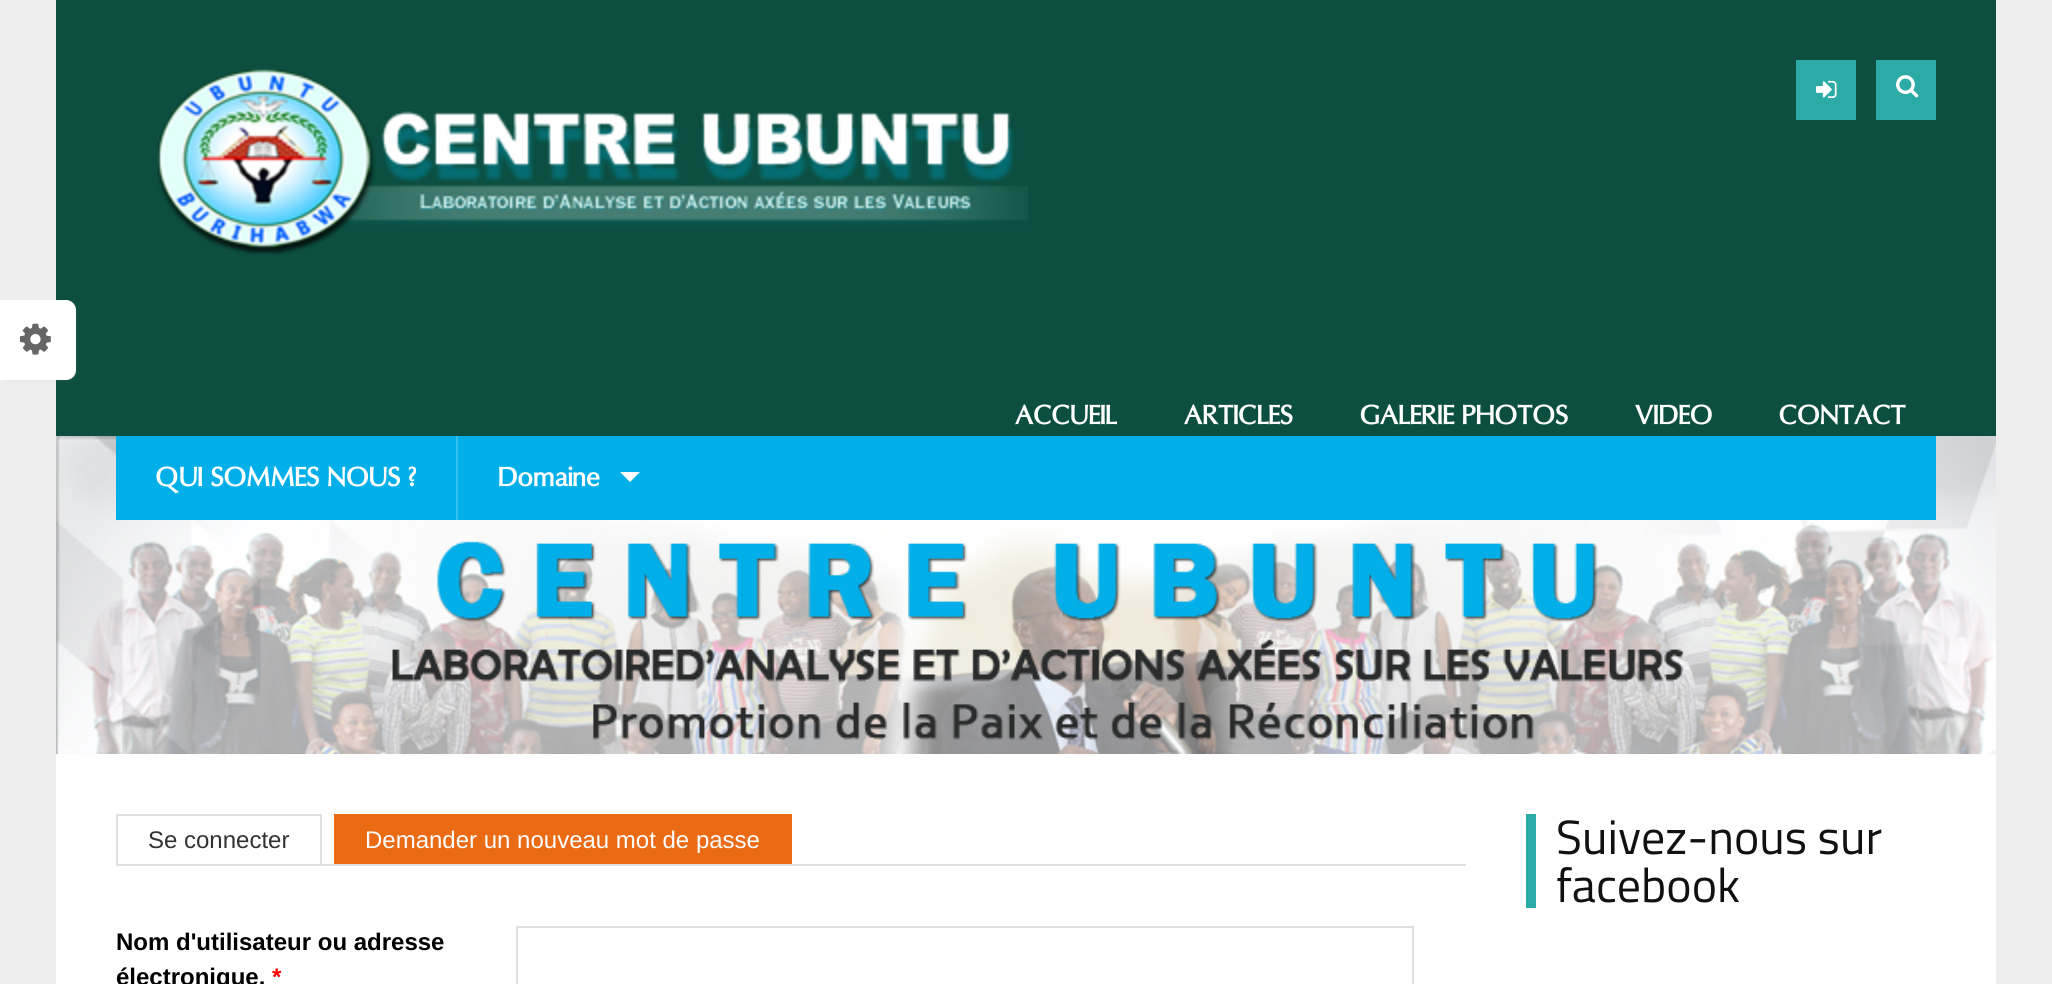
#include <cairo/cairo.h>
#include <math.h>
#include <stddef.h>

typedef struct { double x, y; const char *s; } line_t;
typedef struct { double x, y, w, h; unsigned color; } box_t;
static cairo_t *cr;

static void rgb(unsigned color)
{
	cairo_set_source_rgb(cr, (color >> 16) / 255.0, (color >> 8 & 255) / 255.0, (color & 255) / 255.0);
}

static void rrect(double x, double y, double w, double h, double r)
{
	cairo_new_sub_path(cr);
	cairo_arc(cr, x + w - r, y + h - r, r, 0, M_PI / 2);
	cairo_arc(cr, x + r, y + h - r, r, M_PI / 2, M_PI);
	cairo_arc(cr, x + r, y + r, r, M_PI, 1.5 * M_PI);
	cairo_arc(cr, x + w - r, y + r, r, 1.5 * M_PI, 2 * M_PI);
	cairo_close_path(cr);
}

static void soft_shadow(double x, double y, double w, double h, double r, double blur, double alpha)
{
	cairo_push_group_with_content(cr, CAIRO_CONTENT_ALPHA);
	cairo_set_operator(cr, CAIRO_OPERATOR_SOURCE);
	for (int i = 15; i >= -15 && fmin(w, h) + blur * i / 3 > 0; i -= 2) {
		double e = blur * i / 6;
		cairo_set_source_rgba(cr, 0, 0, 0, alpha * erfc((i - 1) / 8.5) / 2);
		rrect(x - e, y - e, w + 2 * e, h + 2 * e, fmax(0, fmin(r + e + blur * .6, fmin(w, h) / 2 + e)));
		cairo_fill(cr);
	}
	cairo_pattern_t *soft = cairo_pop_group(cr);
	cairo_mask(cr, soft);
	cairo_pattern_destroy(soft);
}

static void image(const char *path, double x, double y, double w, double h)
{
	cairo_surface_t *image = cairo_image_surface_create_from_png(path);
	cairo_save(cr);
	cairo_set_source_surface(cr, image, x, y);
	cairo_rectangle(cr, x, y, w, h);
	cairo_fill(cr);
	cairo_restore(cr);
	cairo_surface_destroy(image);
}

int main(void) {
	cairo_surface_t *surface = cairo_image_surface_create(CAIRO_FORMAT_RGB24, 2052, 984);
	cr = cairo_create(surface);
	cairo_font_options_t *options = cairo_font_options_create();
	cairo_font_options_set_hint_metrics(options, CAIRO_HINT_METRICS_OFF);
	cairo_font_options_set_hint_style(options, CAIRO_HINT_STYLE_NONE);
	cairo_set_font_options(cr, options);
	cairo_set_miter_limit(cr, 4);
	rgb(0xeeeeee);
	cairo_paint(cr);
	rgb(0x0c4e40);
	cairo_rectangle(cr, 56, 0, 1940, 436);
	cairo_fill(cr);
	rgb(0x888888);
	soft_shadow(2, 306, 72, 72, 6, 2, 1);
	rgb(0xffffff);
	cairo_new_path(cr);
	cairo_move_to(cr, -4, 300);
	cairo_line_to(cr, 66, 300);
	cairo_curve_to(cr, 71.5, 300, 76, 304.5, 76, 310);
	cairo_line_to(cr, 76, 370);
	cairo_curve_to(cr, 76, 375.5, 71.5, 380, 66, 380);
	cairo_line_to(cr, -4, 380);
	cairo_close_path(cr);
	cairo_fill(cr);
	image("img/1.png", 20, 323, 31, 32);
	image("img/2.png", 157, 69, 871, 186);
	rgb(0x2caaa6);
	cairo_rectangle(cr, 1796, 60, 60, 60);
	cairo_fill(cr);
	image("img/3.png", 1816, 80, 21, 18);
	cairo_rectangle(cr, 1876, 60, 60, 60);
	cairo_fill(cr);
	image("img/4.png", 1896, 75, 23, 23);
	image("img/5.png", 56, 436, 1940, 318);
	rgb(0x02afe9);
	cairo_rectangle(cr, 116, 436, 1820, 84);
	cairo_fill(cr);
	rgb(0x35bfed);
	cairo_rectangle(cr, 456, 436, 2, 84);
	cairo_fill(cr);
	rgb(0xffffff);
	cairo_new_path(cr);
	cairo_move_to(cr, 620, 472);
	cairo_line_to(cr, 640, 472);
	cairo_line_to(cr, 630, 482);
	cairo_close_path(cr);
	cairo_fill(cr);
	{
		static const box_t items[] = {
			{56, 754, 1940, 230, 0xffffff},
			{116, 864, 1350, 2, 0xe0e0e0},
			{116, 814, 206, 2, 0xe0e0e0},
			{320, 814, 2, 50, 0xe0e0e0},
			{116, 814, 2, 50, 0xe0e0e0},
			{334, 814, 458, 50, 0xeb6a14},
		};
		for (size_t i = 0; i < sizeof items / sizeof *items; i++) {
			rgb(items[i].color);
			cairo_rectangle(cr, items[i].x, items[i].y, items[i].w, items[i].h);
			cairo_fill(cr);
		}
	}
	cairo_rectangle(cr, 517, 927, 896, 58);
	rgb(0xe0e0e0);
	cairo_stroke(cr);
	rgb(0x2caaa6);
	cairo_rectangle(cr, 1526, 814, 10, 94);
	cairo_fill(cr);
	cairo_select_font_face(cr, "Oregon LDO", CAIRO_FONT_SLANT_NORMAL, CAIRO_FONT_WEIGHT_BOLD);
	cairo_set_font_size(cr, 28);
	rgb(0xffffff);
	{
		static const line_t items[] = {
			{1015, 424, "ACCUEIL"},
			{1184, 424, "ARTICLES"},
			{1360, 424, "GALERIE PHOTOS"},
			{1635, 424, "VIDEO"},
			{1779, 424, "CONTACT"},
			{156, 486, "QUI SOMMES NOUS ?"},
			{498, 486, "Domaine"},
		};
		for (size_t i = 0; i < sizeof items / sizeof *items; i++) {
			cairo_move_to(cr, items[i].x, items[i].y);
			cairo_show_text(cr, items[i].s);
		}
	}
	cairo_select_font_face(cr, "Liberation Sans", CAIRO_FONT_SLANT_NORMAL, CAIRO_FONT_WEIGHT_NORMAL);
	cairo_set_font_size(cr, 24);
	rgb(0x333333);
	cairo_move_to(cr, 148, 848);
	cairo_show_text(cr, "Se connecter");
	rgb(0xffffff);
	cairo_move_to(cr, 365, 848);
	cairo_show_text(cr, "Demander un nouveau mot de passe");
	cairo_select_font_face(cr, "Liberation Sans", CAIRO_FONT_SLANT_NORMAL, CAIRO_FONT_WEIGHT_BOLD);
	rgb(0x000000);
	cairo_move_to(cr, 116, 950);
	cairo_show_text(cr, "Nom d'utilisateur ou adresse");
	cairo_move_to(cr, 116, 985);
	cairo_show_text(cr, "électronique.");
	rgb(0xff0000);
	cairo_move_to(cr, 272, 985);
	cairo_show_text(cr, "*");
	cairo_select_font_face(cr, "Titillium", CAIRO_FONT_SLANT_NORMAL, CAIRO_FONT_WEIGHT_NORMAL);
	cairo_set_font_size(cr, 48);
	rgb(0x111111);
	cairo_move_to(cr, 1556, 854);
	cairo_show_text(cr, "Suivez-nous sur");
	cairo_move_to(cr, 1556, 902);
	cairo_show_text(cr, "facebook");
	cairo_surface_write_to_png(surface, "page.png");
	cairo_font_options_destroy(options);
	cairo_destroy(cr);
	cairo_surface_destroy(surface);
	return 0;
}
